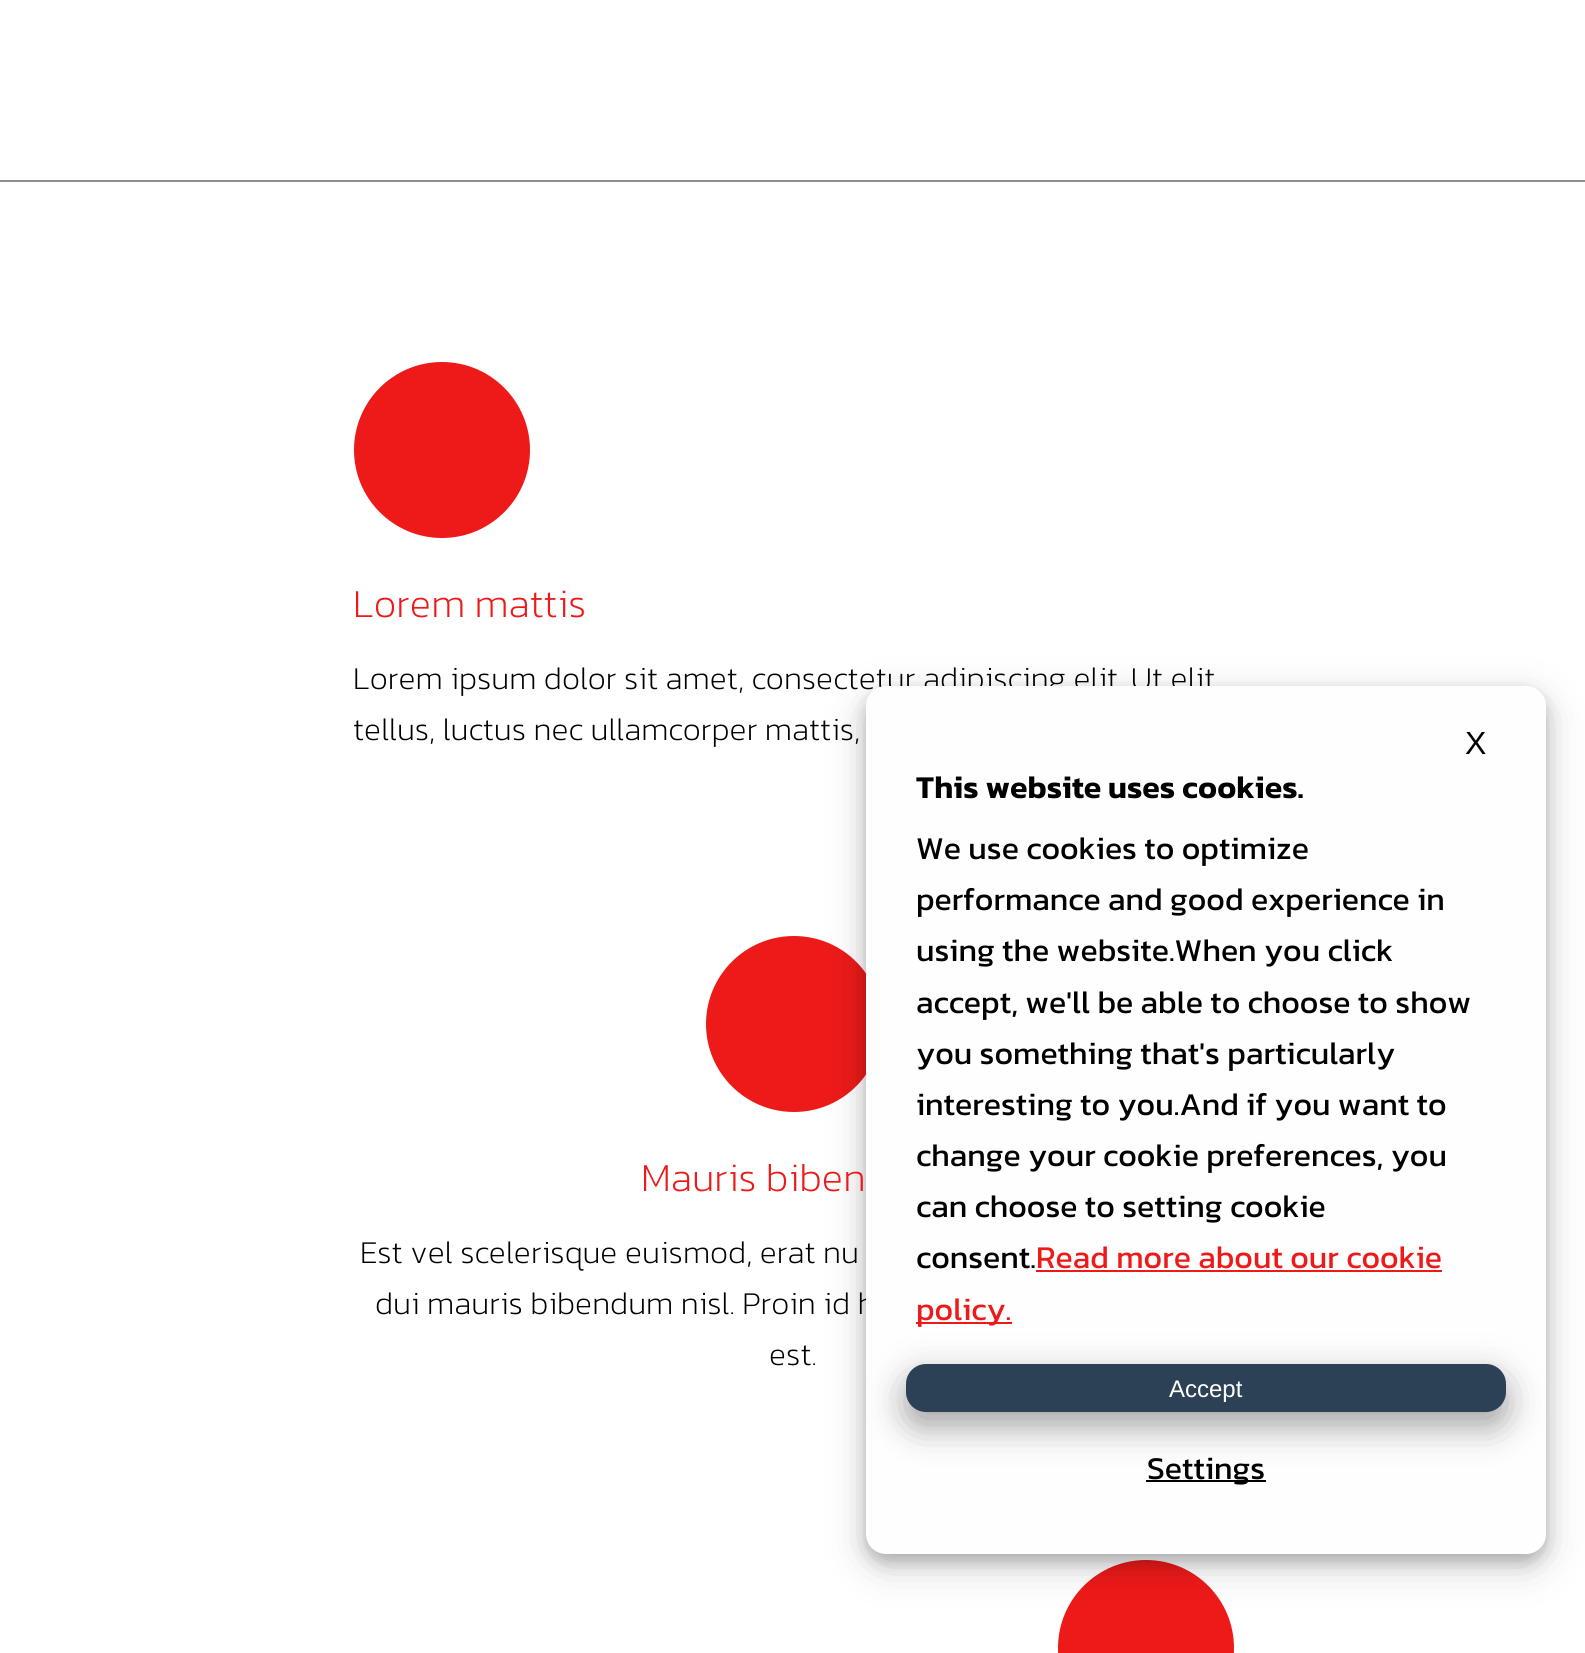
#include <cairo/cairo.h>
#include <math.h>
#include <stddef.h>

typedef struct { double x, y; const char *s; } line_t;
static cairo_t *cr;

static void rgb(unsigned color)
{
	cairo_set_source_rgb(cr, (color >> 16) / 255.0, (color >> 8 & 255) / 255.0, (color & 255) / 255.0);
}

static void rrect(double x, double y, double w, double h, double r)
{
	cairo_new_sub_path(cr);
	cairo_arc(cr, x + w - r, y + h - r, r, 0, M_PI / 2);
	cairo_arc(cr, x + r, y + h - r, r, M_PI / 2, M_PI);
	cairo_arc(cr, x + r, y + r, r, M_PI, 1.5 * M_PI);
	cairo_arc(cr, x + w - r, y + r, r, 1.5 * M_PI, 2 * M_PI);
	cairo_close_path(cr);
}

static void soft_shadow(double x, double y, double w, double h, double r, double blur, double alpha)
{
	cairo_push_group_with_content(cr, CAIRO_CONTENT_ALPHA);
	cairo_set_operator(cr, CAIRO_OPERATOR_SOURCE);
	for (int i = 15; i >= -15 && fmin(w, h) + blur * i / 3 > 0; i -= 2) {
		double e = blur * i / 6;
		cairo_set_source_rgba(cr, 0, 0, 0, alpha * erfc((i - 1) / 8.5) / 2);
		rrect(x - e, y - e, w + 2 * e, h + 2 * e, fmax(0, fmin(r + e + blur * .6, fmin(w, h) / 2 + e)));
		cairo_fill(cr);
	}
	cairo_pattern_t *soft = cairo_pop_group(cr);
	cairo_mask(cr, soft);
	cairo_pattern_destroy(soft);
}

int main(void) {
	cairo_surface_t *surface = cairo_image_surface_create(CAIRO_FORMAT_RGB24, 1585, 1653);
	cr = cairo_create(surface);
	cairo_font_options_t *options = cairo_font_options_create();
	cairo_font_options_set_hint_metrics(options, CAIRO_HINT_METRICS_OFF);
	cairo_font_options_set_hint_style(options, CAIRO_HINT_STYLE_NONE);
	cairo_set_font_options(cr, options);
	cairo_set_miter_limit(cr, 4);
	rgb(0xffffff);
	cairo_paint(cr);
	rgb(0x8b8d94);
	cairo_rectangle(cr, 0, 180, 1585, 2);
	cairo_fill(cr);
	rgb(0xed1a19);
	cairo_arc(cr, 442, 450, 88, 0, 2 * M_PI);
	cairo_fill(cr);
	cairo_arc(cr, 794, 1024, 88, 0, 2 * M_PI);
	cairo_fill(cr);
	cairo_arc(cr, 1146, 1648, 88, 0, 2 * M_PI);
	cairo_fill(cr);
	rgb(0x000000);
	soft_shadow(866, 698, 680, 868, 20, 20, 0.19);
	soft_shadow(866, 694, 680, 868, 20, 8, 0.2);
	cairo_select_font_face(cr, "Kanit ExtraLight", CAIRO_FONT_SLANT_NORMAL, CAIRO_FONT_WEIGHT_NORMAL);
	cairo_set_font_size(cr, 40);
	rgb(0xed1a19);
	cairo_move_to(cr, 353, 617);
	cairo_show_text(cr, "Lorem mattis");
	cairo_set_font_size(cr, 32);
	rgb(0x000000);
	cairo_move_to(cr, 353, 689);
	cairo_show_text(cr, "Lorem ipsum dolor sit amet, consectetur adipiscing elit. Ut elit");
	cairo_move_to(cr, 353, 740);
	cairo_show_text(cr, "tellus, luctus nec ullamcorper mattis,");
	cairo_set_font_size(cr, 40);
	rgb(0xed1a19);
	cairo_move_to(cr, 641, 1191);
	cairo_show_text(cr, "Mauris biben");
	cairo_set_font_size(cr, 32);
	rgb(0x000000);
	{
		static const line_t items[] = {
			{360, 1263, "Est vel scelerisque euismod, erat nu"},
			{375, 1314, "dui mauris bibendum nisl. Proin id h"},
			{769, 1365, "est."},
		};
		for (size_t i = 0; i < sizeof items / sizeof *items; i++) {
			cairo_move_to(cr, items[i].x, items[i].y);
			cairo_show_text(cr, items[i].s);
		}
	}
	rgb(0xfefefe);
	rrect(866, 686, 680, 868, 20);
	cairo_fill(cr);
	cairo_select_font_face(cr, "Liberation Sans", CAIRO_FONT_SLANT_NORMAL, CAIRO_FONT_WEIGHT_NORMAL);
	rgb(0x000000);
	cairo_move_to(cr, 1465, 754);
	cairo_show_text(cr, "X");
	cairo_select_font_face(cr, "Kanit SemiBold", CAIRO_FONT_SLANT_NORMAL, CAIRO_FONT_WEIGHT_NORMAL);
	cairo_move_to(cr, 916, 798);
	cairo_show_text(cr, "This website uses cookies.");
	cairo_select_font_face(cr, "Kanit", CAIRO_FONT_SLANT_NORMAL, CAIRO_FONT_WEIGHT_NORMAL);
	{
		static const line_t items[] = {
			{916, 859, "We use cookies to optimize"},
			{916, 910, "performance and good experience in"},
			{916, 961, "using the website.When you click"},
			{916, 1013, "accept, we'll be able to choose to show"},
			{916, 1064, "you something that's particularly"},
			{916, 1115, "interesting to you.And if you want to"},
			{916, 1166, "change your cookie preferences, you"},
			{916, 1217, "can choose to setting cookie"},
			{916, 1268, "consent."},
		};
		for (size_t i = 0; i < sizeof items / sizeof *items; i++) {
			cairo_move_to(cr, items[i].x, items[i].y);
			cairo_show_text(cr, items[i].s);
		}
	}
	rgb(0xed1a19);
	cairo_move_to(cr, 1036, 1268);
	cairo_show_text(cr, "Read more about our cookie");
	cairo_rectangle(cr, 1036, 1270, 406, 2);
	cairo_fill(cr);
	rgb(0x000000);
	soft_shadow(906, 1376, 600, 48, 20, 20, 0.19);
	rgb(0xed1a19);
	cairo_rectangle(cr, 916, 1322, 96, 2);
	cairo_fill(cr);
	cairo_move_to(cr, 916, 1320);
	cairo_show_text(cr, "policy.");
	rgb(0x000000);
	soft_shadow(906, 1380, 600, 48, 20, 16, 0.2);
	rgb(0x2d4156);
	rrect(906, 1364, 600, 48, 20);
	cairo_fill(cr);
	cairo_select_font_face(cr, "Liberation Sans", CAIRO_FONT_SLANT_NORMAL, CAIRO_FONT_WEIGHT_NORMAL);
	cairo_set_font_size(cr, 24);
	rgb(0xffffff);
	cairo_move_to(cr, 1169, 1397);
	cairo_show_text(cr, "Accept");
	rgb(0x000000);
	cairo_rectangle(cr, 1146, 1480, 120, 2);
	cairo_fill(cr);
	cairo_select_font_face(cr, "Kanit", CAIRO_FONT_SLANT_NORMAL, CAIRO_FONT_WEIGHT_NORMAL);
	cairo_set_font_size(cr, 32);
	cairo_move_to(cr, 1147, 1479);
	cairo_show_text(cr, "Settings");
	cairo_surface_write_to_png(surface, "page.png");
	cairo_font_options_destroy(options);
	cairo_destroy(cr);
	cairo_surface_destroy(surface);
	return 0;
}
